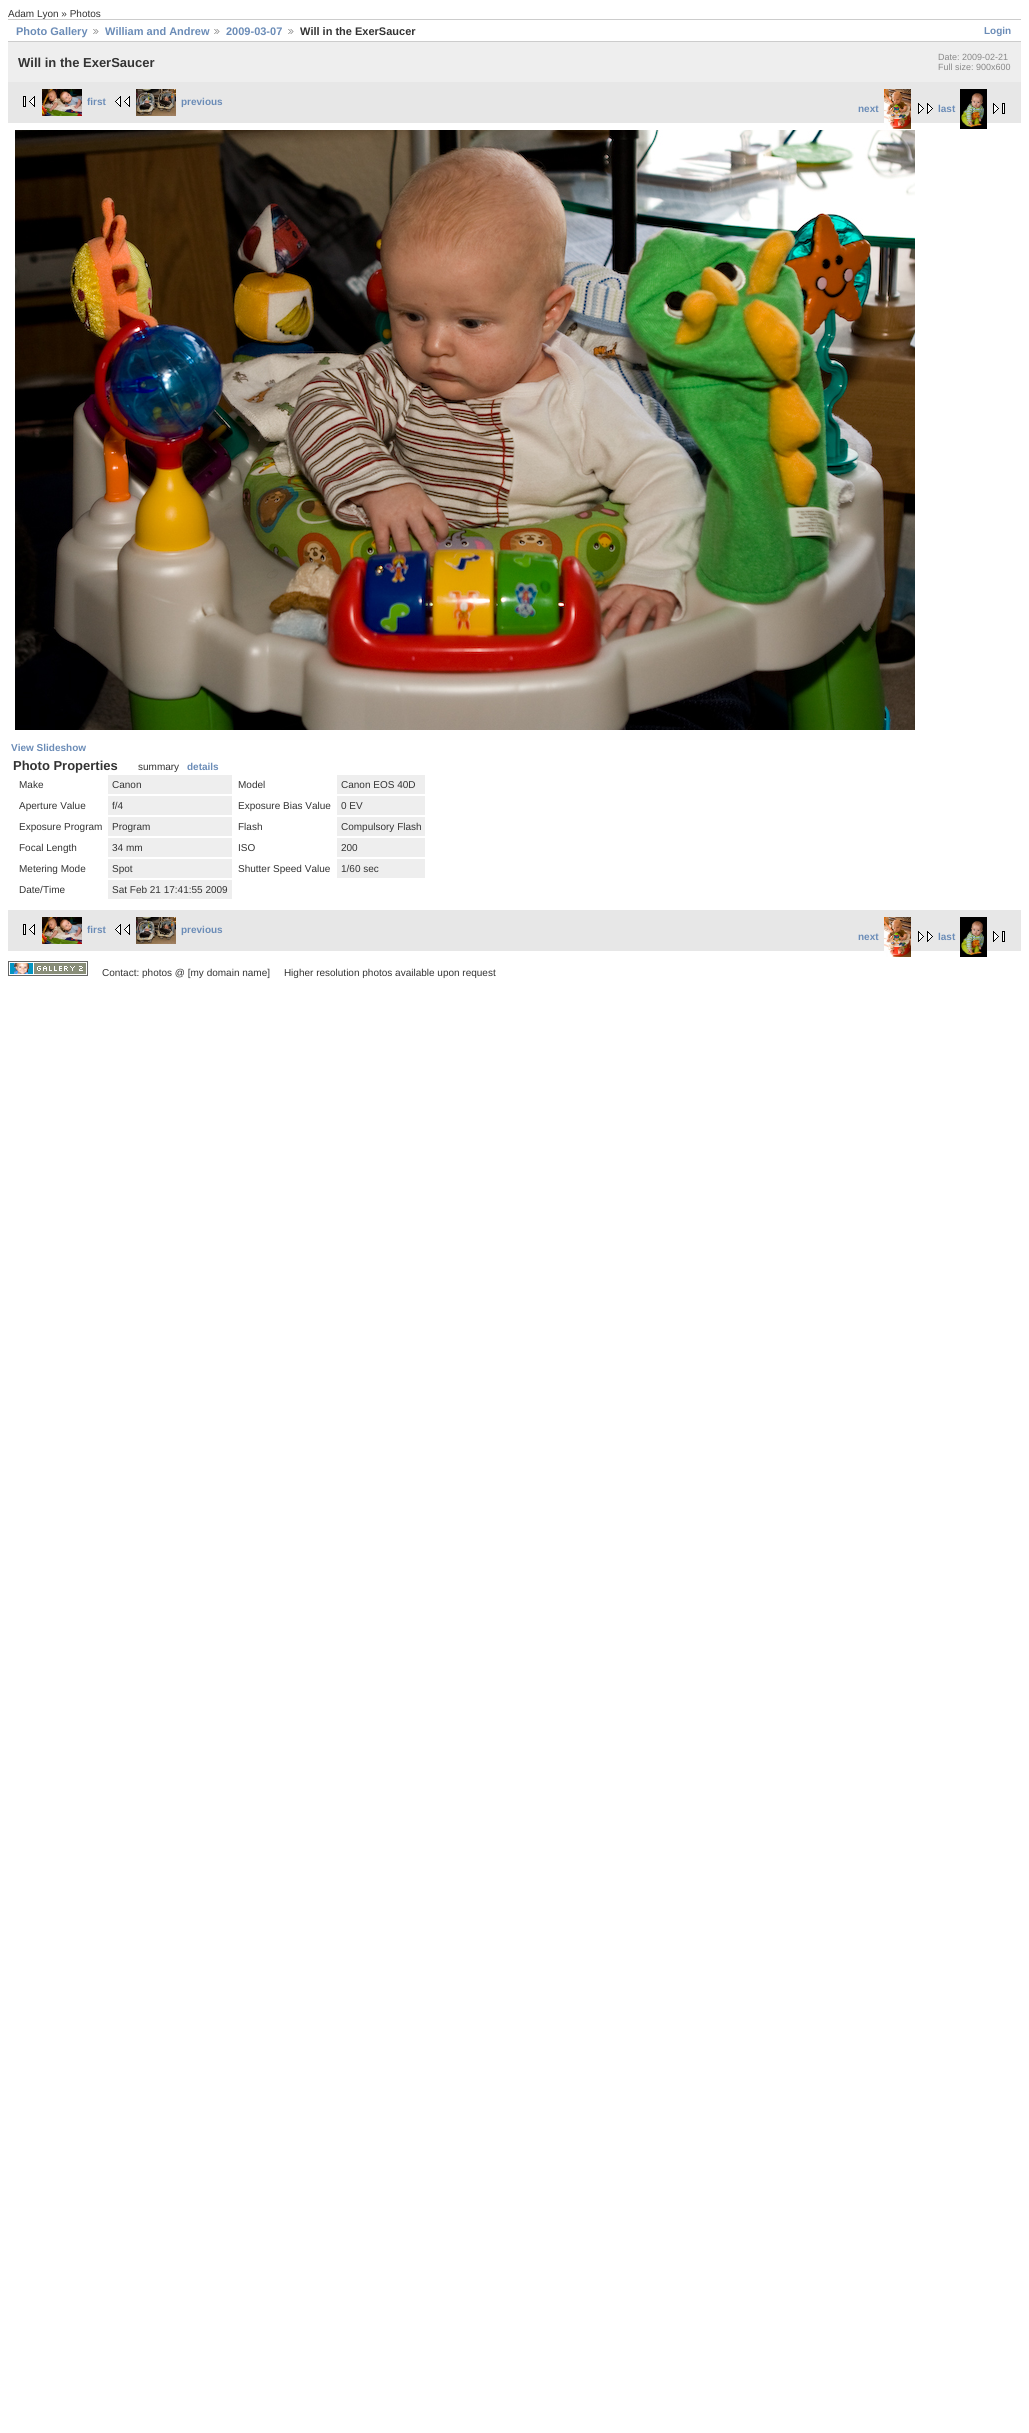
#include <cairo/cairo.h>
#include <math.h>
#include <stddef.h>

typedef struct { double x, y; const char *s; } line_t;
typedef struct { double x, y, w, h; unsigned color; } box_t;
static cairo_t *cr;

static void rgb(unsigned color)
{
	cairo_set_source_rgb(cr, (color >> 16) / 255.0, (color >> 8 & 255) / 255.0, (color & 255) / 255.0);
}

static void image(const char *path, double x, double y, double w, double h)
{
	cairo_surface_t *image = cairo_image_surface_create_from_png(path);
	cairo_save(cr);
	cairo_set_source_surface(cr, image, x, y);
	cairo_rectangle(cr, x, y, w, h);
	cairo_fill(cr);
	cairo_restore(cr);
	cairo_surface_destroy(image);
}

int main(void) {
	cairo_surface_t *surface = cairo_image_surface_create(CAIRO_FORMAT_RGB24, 1029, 2433);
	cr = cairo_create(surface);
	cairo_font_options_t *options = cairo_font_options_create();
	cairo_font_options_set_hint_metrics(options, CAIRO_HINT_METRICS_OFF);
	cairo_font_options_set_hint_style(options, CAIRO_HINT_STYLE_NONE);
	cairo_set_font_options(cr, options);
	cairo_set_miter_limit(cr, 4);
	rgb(0xffffff);
	cairo_paint(cr);
	rgb(0xcccccc);
	cairo_rectangle(cr, 8, 19, 1013, 1);
	cairo_fill(cr);
	cairo_rectangle(cr, 8, 41, 1013, 1);
	cairo_fill(cr);
	image("img/1.png", 93, 29, 6, 5);
	image("img/1.png", 214, 29, 6, 5);
	image("img/1.png", 288, 29, 6, 5);
	rgb(0xeeeeee);
	cairo_rectangle(cr, 8, 42, 1013, 40);
	cairo_fill(cr);
	rgb(0xe7e7e7);
	cairo_rectangle(cr, 8, 82, 1013, 41);
	cairo_fill(cr);
	image("img/2.png", 23, 96, 12, 11);
	image("img/3.png", 42, 89, 40, 27);
	image("img/4.png", 115, 96, 15, 11);
	image("img/5.png", 136, 89, 40, 27);
	image("img/6.png", 884, 89, 27, 40);
	image("img/7.png", 918, 103, 15, 11);
	image("img/8.png", 960, 89, 27, 40);
	image("img/9.png", 993, 103, 12, 11);
	image("img/10.png", 15, 130, 900, 600);
	{
		static const box_t items[] = {
			{108, 775, 124, 19, 0xeeeeee},
			{337, 775, 88, 19, 0xeeeeee},
			{108, 796, 124, 19, 0xeeeeee},
			{337, 796, 88, 19, 0xeeeeee},
			{108, 817, 124, 19, 0xeeeeee},
			{337, 817, 88, 19, 0xeeeeee},
			{108, 838, 124, 19, 0xeeeeee},
			{337, 838, 88, 19, 0xeeeeee},
			{108, 859, 124, 19, 0xeeeeee},
			{337, 859, 88, 19, 0xeeeeee},
			{108, 880, 124, 19, 0xeeeeee},
			{8, 910, 1013, 41, 0xe7e7e7},
		};
		for (size_t i = 0; i < sizeof items / sizeof *items; i++) {
			rgb(items[i].color);
			cairo_rectangle(cr, items[i].x, items[i].y, items[i].w, items[i].h);
			cairo_fill(cr);
		}
	}
	image("img/2.png", 23, 924, 12, 11);
	image("img/3.png", 42, 917, 40, 27);
	image("img/4.png", 115, 924, 15, 11);
	image("img/5.png", 136, 917, 40, 27);
	image("img/6.png", 884, 917, 27, 40);
	image("img/7.png", 918, 931, 15, 11);
	image("img/8.png", 960, 917, 27, 40);
	image("img/9.png", 993, 931, 12, 11);
	image("img/11.png", 8, 961, 80, 15);
	cairo_select_font_face(cr, "Liberation Sans", CAIRO_FONT_SLANT_NORMAL, CAIRO_FONT_WEIGHT_NORMAL);
	cairo_set_font_size(cr, 10);
	rgb(0x333333);
	cairo_move_to(cr, 8, 17);
	cairo_show_text(cr, "Adam Lyon » Photos");
	cairo_select_font_face(cr, "Liberation Sans", CAIRO_FONT_SLANT_NORMAL, CAIRO_FONT_WEIGHT_BOLD);
	cairo_set_font_size(cr, 11);
	rgb(0x6b8cb7);
	{
		static const line_t items[] = {
			{16, 35, "Photo Gallery"},
			{105, 35, "William and Andrew"},
			{226, 35, "2009-03-07"},
		};
		for (size_t i = 0; i < sizeof items / sizeof *items; i++) {
			cairo_move_to(cr, items[i].x, items[i].y);
			cairo_show_text(cr, items[i].s);
		}
	}
	rgb(0x333333);
	cairo_move_to(cr, 300, 35);
	cairo_show_text(cr, "Will in the ExerSaucer");
	cairo_set_font_size(cr, 10);
	rgb(0x6b8cb7);
	cairo_move_to(cr, 984, 34);
	cairo_show_text(cr, "Login");
	cairo_set_font_size(cr, 13);
	rgb(0x333333);
	cairo_move_to(cr, 18, 67);
	cairo_show_text(cr, "Will in the ExerSaucer");
	cairo_select_font_face(cr, "Liberation Sans", CAIRO_FONT_SLANT_NORMAL, CAIRO_FONT_WEIGHT_NORMAL);
	cairo_set_font_size(cr, 9);
	rgb(0x888888);
	cairo_move_to(cr, 938, 60);
	cairo_show_text(cr, "Date: 2009-02-21");
	cairo_move_to(cr, 938, 70);
	cairo_show_text(cr, "Full size: 900x600");
	cairo_select_font_face(cr, "Liberation Sans", CAIRO_FONT_SLANT_NORMAL, CAIRO_FONT_WEIGHT_BOLD);
	cairo_set_font_size(cr, 10);
	rgb(0x6b8cb7);
	{
		static const line_t items[] = {
			{87, 105, "first"},
			{181, 105, "previous"},
			{858, 112, "next"},
			{938, 112, "last"},
			{11, 751, "View Slideshow"},
		};
		for (size_t i = 0; i < sizeof items / sizeof *items; i++) {
			cairo_move_to(cr, items[i].x, items[i].y);
			cairo_show_text(cr, items[i].s);
		}
	}
	cairo_set_font_size(cr, 13);
	rgb(0x333333);
	cairo_move_to(cr, 13, 770);
	cairo_show_text(cr, "Photo Properties");
	cairo_select_font_face(cr, "Liberation Sans", CAIRO_FONT_SLANT_NORMAL, CAIRO_FONT_WEIGHT_NORMAL);
	cairo_set_font_size(cr, 10);
	cairo_move_to(cr, 138, 770);
	cairo_show_text(cr, "summary");
	cairo_select_font_face(cr, "Liberation Sans", CAIRO_FONT_SLANT_NORMAL, CAIRO_FONT_WEIGHT_BOLD);
	rgb(0x6b8cb7);
	cairo_move_to(cr, 187, 770);
	cairo_show_text(cr, "details");
	cairo_select_font_face(cr, "Liberation Sans", CAIRO_FONT_SLANT_NORMAL, CAIRO_FONT_WEIGHT_NORMAL);
	rgb(0x333333);
	{
		static const line_t items[] = {
			{19, 788, "Make"},
			{112, 788, "Canon"},
			{238, 788, "Model"},
			{341, 788, "Canon EOS 40D"},
			{19, 809, "Aperture Value"},
			{112, 809, "f/4"},
			{238, 809, "Exposure Bias Value"},
			{341, 809, "0 EV"},
			{19, 830, "Exposure Program"},
			{112, 830, "Program"},
			{238, 830, "Flash"},
			{341, 830, "Compulsory Flash"},
			{19, 851, "Focal Length"},
			{112, 851, "34 mm"},
			{238, 851, "ISO"},
			{341, 851, "200"},
			{19, 872, "Metering Mode"},
			{112, 872, "Spot"},
			{238, 872, "Shutter Speed Value"},
			{341, 872, "1/60 sec"},
			{19, 893, "Date/Time"},
			{112, 893, "Sat Feb 21 17:41:55 2009"},
		};
		for (size_t i = 0; i < sizeof items / sizeof *items; i++) {
			cairo_move_to(cr, items[i].x, items[i].y);
			cairo_show_text(cr, items[i].s);
		}
	}
	cairo_select_font_face(cr, "Liberation Sans", CAIRO_FONT_SLANT_NORMAL, CAIRO_FONT_WEIGHT_BOLD);
	rgb(0x6b8cb7);
	{
		static const line_t items[] = {
			{87, 933, "first"},
			{181, 933, "previous"},
			{858, 940, "next"},
			{938, 940, "last"},
		};
		for (size_t i = 0; i < sizeof items / sizeof *items; i++) {
			cairo_move_to(cr, items[i].x, items[i].y);
			cairo_show_text(cr, items[i].s);
		}
	}
	cairo_select_font_face(cr, "Liberation Sans", CAIRO_FONT_SLANT_NORMAL, CAIRO_FONT_WEIGHT_NORMAL);
	rgb(0x333333);
	cairo_move_to(cr, 102, 976);
	cairo_show_text(cr, "Contact: photos @ [my domain name]     Higher resolution photos available upon request");
	cairo_surface_write_to_png(surface, "page.png");
	cairo_font_options_destroy(options);
	cairo_destroy(cr);
	cairo_surface_destroy(surface);
	return 0;
}
